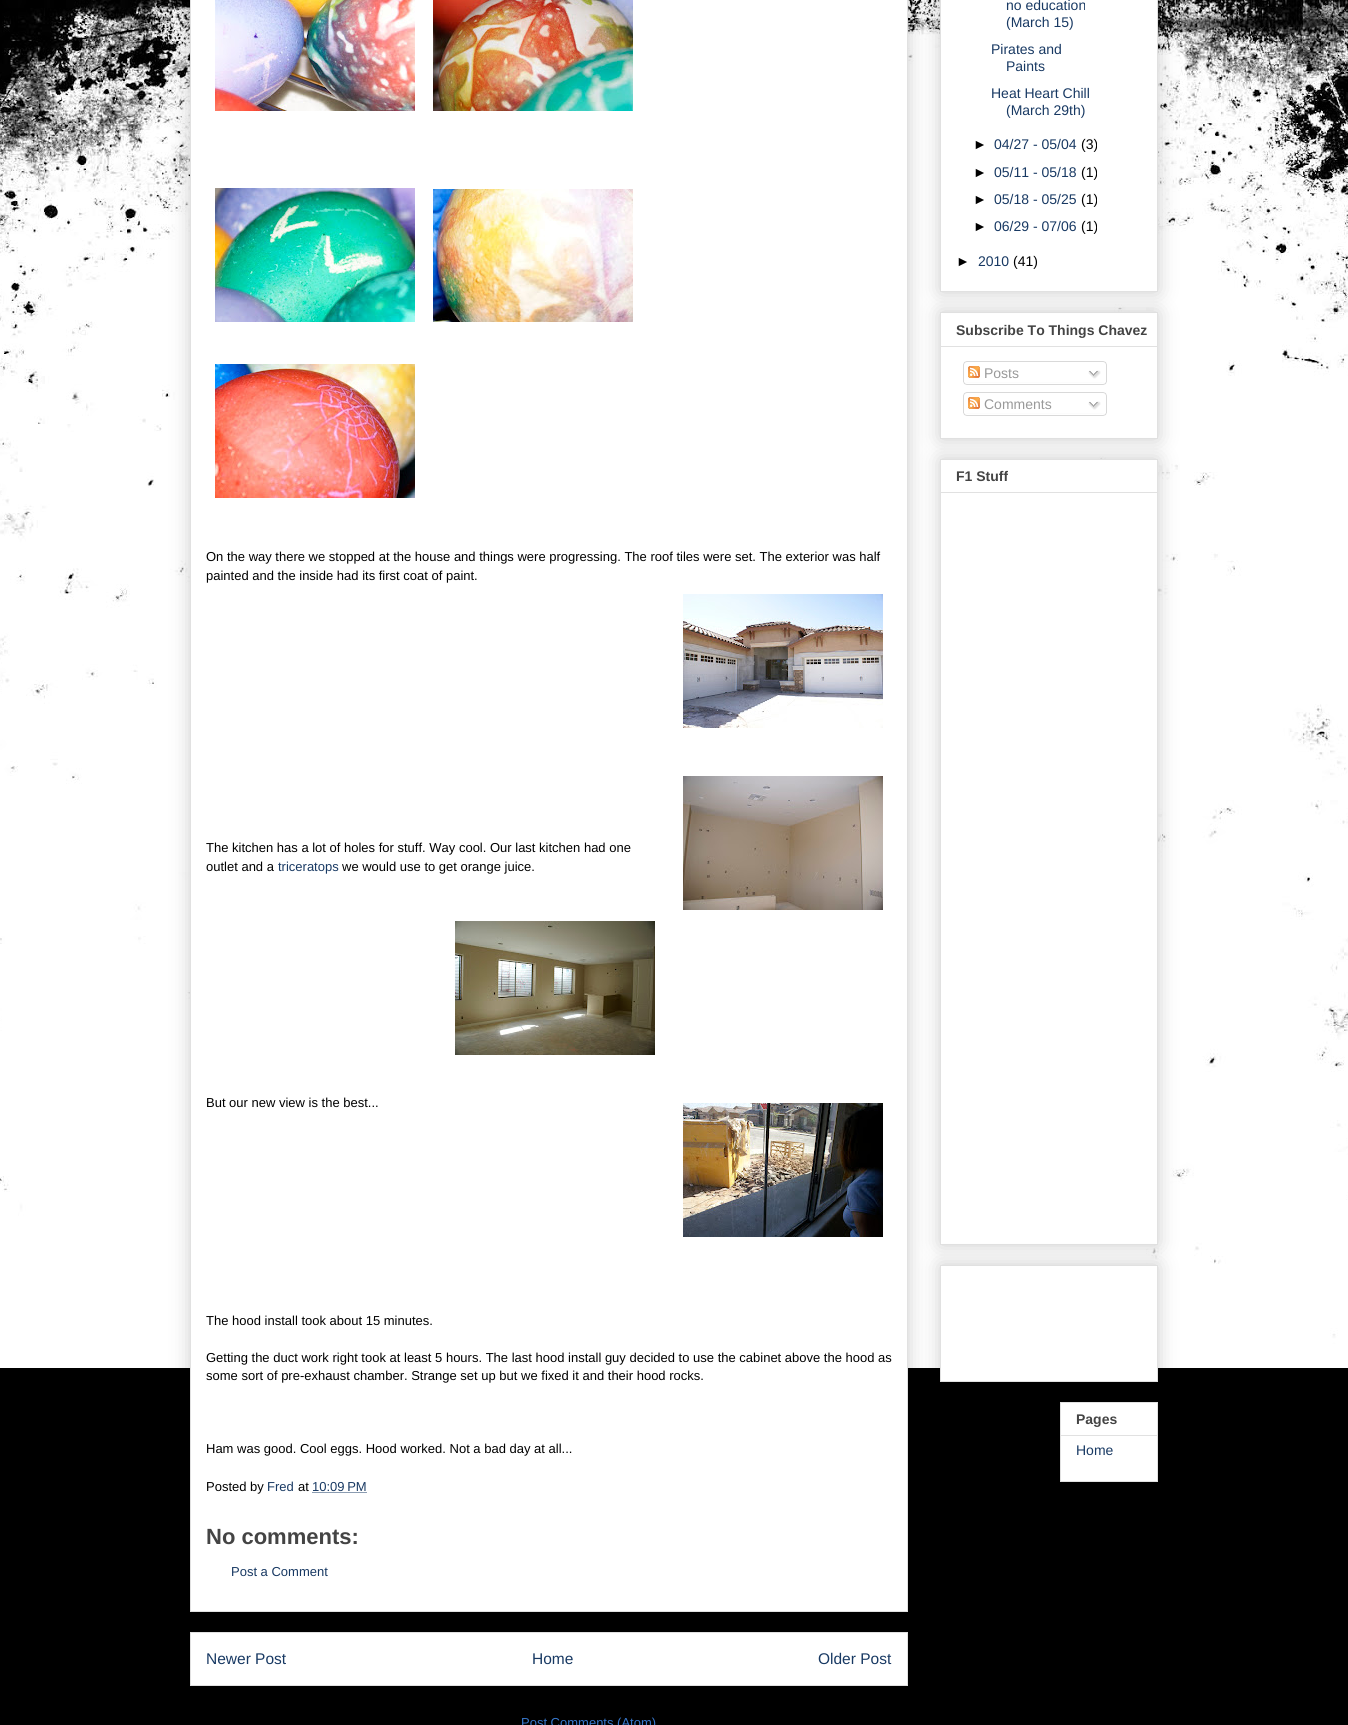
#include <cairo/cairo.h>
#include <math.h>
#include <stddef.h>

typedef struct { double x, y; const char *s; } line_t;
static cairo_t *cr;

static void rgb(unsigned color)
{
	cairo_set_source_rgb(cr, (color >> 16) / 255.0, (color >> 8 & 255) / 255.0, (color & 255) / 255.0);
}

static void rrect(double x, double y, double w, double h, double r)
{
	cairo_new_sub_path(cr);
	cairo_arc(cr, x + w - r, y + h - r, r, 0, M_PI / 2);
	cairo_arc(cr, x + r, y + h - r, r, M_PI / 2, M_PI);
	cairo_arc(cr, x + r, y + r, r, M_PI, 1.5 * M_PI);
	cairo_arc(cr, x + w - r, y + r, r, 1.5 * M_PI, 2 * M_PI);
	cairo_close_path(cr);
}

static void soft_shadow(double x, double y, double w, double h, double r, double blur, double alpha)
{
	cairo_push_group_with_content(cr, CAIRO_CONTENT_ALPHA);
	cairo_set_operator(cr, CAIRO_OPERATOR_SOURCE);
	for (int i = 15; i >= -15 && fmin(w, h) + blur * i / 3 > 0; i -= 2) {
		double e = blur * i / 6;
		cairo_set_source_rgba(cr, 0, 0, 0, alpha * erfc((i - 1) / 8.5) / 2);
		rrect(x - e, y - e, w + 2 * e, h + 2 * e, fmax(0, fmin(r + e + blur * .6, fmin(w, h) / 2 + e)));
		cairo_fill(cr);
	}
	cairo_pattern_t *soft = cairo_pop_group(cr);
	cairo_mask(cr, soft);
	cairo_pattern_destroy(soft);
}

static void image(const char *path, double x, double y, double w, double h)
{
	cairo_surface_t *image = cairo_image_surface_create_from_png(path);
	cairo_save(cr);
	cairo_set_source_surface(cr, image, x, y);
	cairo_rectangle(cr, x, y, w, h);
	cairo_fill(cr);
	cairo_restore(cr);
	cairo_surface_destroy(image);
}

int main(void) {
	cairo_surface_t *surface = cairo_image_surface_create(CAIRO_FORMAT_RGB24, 1348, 1725);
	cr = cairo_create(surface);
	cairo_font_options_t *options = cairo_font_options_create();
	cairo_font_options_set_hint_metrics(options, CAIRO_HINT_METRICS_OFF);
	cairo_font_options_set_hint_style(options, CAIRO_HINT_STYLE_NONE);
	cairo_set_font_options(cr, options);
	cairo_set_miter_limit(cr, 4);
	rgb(0x000000);
	cairo_paint(cr);
	image("img/1.png", 0, 0, 1348, 1368);
	rgb(0xffffff);
	cairo_rectangle(cr, 190.5, 1632.5, 717, 53);
	cairo_fill_preserve(cr);
	rgb(0xe1e1e1);
	cairo_set_line_width(cr, 1);
	cairo_stroke(cr);
	rgb(0x000000);
	soft_shadow(190, -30, 718, 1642, 0, 10, 0.2);
	rgb(0xffffff);
	cairo_rectangle(cr, 190.5, -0.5, 717, 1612);
	cairo_fill_preserve(cr);
	rgb(0xe1e1e1);
	cairo_stroke(cr);
	image("img/2.png", 215, 0, 200, 111);
	image("img/3.png", 433, 0, 200, 111);
	image("img/4.png", 215, 188, 200, 134);
	image("img/5.png", 433, 189, 200, 133);
	image("img/6.png", 215, 364, 200, 134);
	image("img/7.png", 683, 594, 200, 134);
	image("img/8.png", 683, 776, 200, 134);
	image("img/9.png", 455, 921, 200, 134);
	image("img/10.png", 683, 1103, 200, 134);
	cairo_new_path(cr);
	cairo_move_to(cr, 312.5, 1492.5);
	cairo_line_to(cr, 367, 1492.5);
	rgb(0x183963);
	cairo_set_dash(cr, (double[]){1, 1}, 2, 0);
	cairo_stroke(cr);
	rgb(0x000000);
	soft_shadow(940, 312, 218, 127, 0, 10, 0.2);
	rgb(0xffffff);
	cairo_rectangle(cr, 940.5, 312.5, 217, 126);
	cairo_fill_preserve(cr);
	rgb(0xe1e1e1);
	cairo_set_dash(cr, NULL, 0, 0);
	cairo_stroke(cr);
	rgb(0x000000);
	soft_shadow(940, -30, 218, 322, 0, 10, 0.2);
	rgb(0xffffff);
	cairo_rectangle(cr, 940.5, -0.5, 217, 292);
	cairo_fill_preserve(cr);
	rgb(0xe1e1e1);
	cairo_stroke(cr);
	cairo_rectangle(cr, 941, 346, 216, 1);
	cairo_fill(cr);
	image("img/11.png", 963, 361, 144, 21);
	image("img/12.png", 968, 366, 12, 12);
	image("img/13.png", 1088, 370, 13, 9);
	image("img/14.png", 963, 382, 144, 3);
	image("img/11.png", 963, 392, 144, 21);
	image("img/12.png", 968, 397, 12, 12);
	image("img/13.png", 1088, 401, 13, 9);
	image("img/14.png", 963, 413, 144, 3);
	rgb(0x000000);
	soft_shadow(940, 459, 218, 786, 0, 10, 0.2);
	rgb(0xffffff);
	cairo_rectangle(cr, 940.5, 459.5, 217, 785);
	cairo_fill_preserve(cr);
	rgb(0xe1e1e1);
	cairo_stroke(cr);
	cairo_rectangle(cr, 941, 492, 216, 1);
	cairo_fill(cr);
	rgb(0x000000);
	soft_shadow(940, 1265, 218, 117, 0, 10, 0.2);
	rgb(0xffffff);
	cairo_rectangle(cr, 940.5, 1265.5, 217, 116);
	cairo_fill_preserve(cr);
	rgb(0xe1e1e1);
	cairo_stroke(cr);
	rgb(0xffffff);
	cairo_rectangle(cr, 1060.5, 1402.5, 97, 79);
	cairo_fill_preserve(cr);
	rgb(0xe1e1e1);
	cairo_stroke(cr);
	cairo_rectangle(cr, 1061, 1435, 96, 1);
	cairo_fill(cr);
	cairo_select_font_face(cr, "Liberation Sans", CAIRO_FONT_SLANT_NORMAL, CAIRO_FONT_WEIGHT_NORMAL);
	cairo_set_font_size(cr, 13);
	rgb(0x000000);
	{
		static const line_t items[] = {
			{206, 561, "On the way there we stopped at the house and things were progressing. The roof tiles were set. The exterior was half"},
			{206, 580, "painted and the inside had its first coat of paint."},
			{206, 852, "The kitchen has a lot of holes for stuff. Way cool. Our last kitchen had one"},
			{206, 871, "outlet and a"},
		};
		for (size_t i = 0; i < sizeof items / sizeof *items; i++) {
			cairo_move_to(cr, items[i].x, items[i].y);
			cairo_show_text(cr, items[i].s);
		}
	}
	rgb(0x183963);
	cairo_move_to(cr, 278, 871);
	cairo_show_text(cr, "triceratops");
	rgb(0x000000);
	{
		static const line_t items[] = {
			{342, 871, "we would use to get orange juice."},
			{206, 1107, "But our new view is the best..."},
			{206, 1325, "The hood install took about 15 minutes."},
			{206, 1362, "Getting the duct work right took at least 5 hours. The last hood install guy decided to use the cabinet above the hood as"},
			{206, 1380, "some sort of pre-exhaust chamber. Strange set up but we fixed it and their hood rocks."},
			{206, 1453, "Ham was good. Cool eggs. Hood worked. Not a bad day at all..."},
			{206, 1491, "Posted by"},
		};
		for (size_t i = 0; i < sizeof items / sizeof *items; i++) {
			cairo_move_to(cr, items[i].x, items[i].y);
			cairo_show_text(cr, items[i].s);
		}
	}
	rgb(0x183963);
	cairo_move_to(cr, 267, 1491);
	cairo_show_text(cr, "Fred");
	rgb(0x000000);
	cairo_move_to(cr, 298, 1491);
	cairo_show_text(cr, "at");
	rgb(0x183963);
	cairo_move_to(cr, 312, 1491);
	cairo_show_text(cr, "10:09 PM");
	cairo_select_font_face(cr, "Liberation Sans", CAIRO_FONT_SLANT_NORMAL, CAIRO_FONT_WEIGHT_BOLD);
	cairo_set_font_size(cr, 22);
	rgb(0x444444);
	cairo_move_to(cr, 206, 1544);
	cairo_show_text(cr, "No comments:");
	cairo_select_font_face(cr, "Liberation Sans", CAIRO_FONT_SLANT_NORMAL, CAIRO_FONT_WEIGHT_NORMAL);
	cairo_set_font_size(cr, 13);
	rgb(0x183963);
	cairo_move_to(cr, 231, 1576);
	cairo_show_text(cr, "Post a Comment");
	cairo_set_font_size(cr, 15.5);
	{
		static const line_t items[] = {
			{206, 1664, "Newer Post"},
			{532, 1664, "Home"},
			{818, 1664, "Older Post"},
		};
		for (size_t i = 0; i < sizeof items / sizeof *items; i++) {
			cairo_move_to(cr, items[i].x, items[i].y);
			cairo_show_text(cr, items[i].s);
		}
	}
	cairo_set_font_size(cr, 13);
	rgb(0x3778cd);
	cairo_move_to(cr, 521, 1727);
	cairo_show_text(cr, "Post Comments (Atom)");
	cairo_set_font_size(cr, 14);
	rgb(0x183963);
	{
		static const line_t items[] = {
			{1006, 10, "no education"},
			{1006, 27, "(March 15)"},
			{991, 54, "Pirates and"},
			{1006, 71, "Paints"},
			{991, 98, "Heat Heart Chill"},
			{1006, 115, "(March 29th)"},
		};
		for (size_t i = 0; i < sizeof items / sizeof *items; i++) {
			cairo_move_to(cr, items[i].x, items[i].y);
			cairo_show_text(cr, items[i].s);
		}
	}
	rgb(0x000000);
	cairo_move_to(cr, 973, 149);
	cairo_show_text(cr, "►");
	rgb(0x183963);
	cairo_move_to(cr, 994, 149);
	cairo_show_text(cr, "04/27 - 05/04");
	rgb(0x000000);
	cairo_move_to(cr, 1081, 149);
	cairo_show_text(cr, "(3)");
	cairo_move_to(cr, 973, 177);
	cairo_show_text(cr, "►");
	rgb(0x183963);
	cairo_move_to(cr, 994, 177);
	cairo_show_text(cr, "05/11 - 05/18");
	rgb(0x000000);
	cairo_move_to(cr, 1081, 177);
	cairo_show_text(cr, "(1)");
	cairo_move_to(cr, 973, 204);
	cairo_show_text(cr, "►");
	rgb(0x183963);
	cairo_move_to(cr, 994, 204);
	cairo_show_text(cr, "05/18 - 05/25");
	rgb(0x000000);
	cairo_move_to(cr, 1081, 204);
	cairo_show_text(cr, "(1)");
	cairo_move_to(cr, 973, 231);
	cairo_show_text(cr, "►");
	rgb(0x183963);
	cairo_move_to(cr, 994, 231);
	cairo_show_text(cr, "06/29 - 07/06");
	rgb(0x000000);
	cairo_move_to(cr, 1081, 231);
	cairo_show_text(cr, "(1)");
	cairo_move_to(cr, 956, 266);
	cairo_show_text(cr, "►");
	rgb(0x183963);
	cairo_move_to(cr, 978, 266);
	cairo_show_text(cr, "2010");
	rgb(0x000000);
	cairo_move_to(cr, 1013, 266);
	cairo_show_text(cr, "(41)");
	cairo_select_font_face(cr, "Liberation Sans", CAIRO_FONT_SLANT_NORMAL, CAIRO_FONT_WEIGHT_BOLD);
	rgb(0x444444);
	cairo_move_to(cr, 956, 335);
	cairo_show_text(cr, "Subscribe To Things Chavez");
	cairo_select_font_face(cr, "Liberation Sans", CAIRO_FONT_SLANT_NORMAL, CAIRO_FONT_WEIGHT_NORMAL);
	rgb(0x999999);
	cairo_move_to(cr, 984, 378);
	cairo_show_text(cr, "Posts");
	cairo_move_to(cr, 984, 409);
	cairo_show_text(cr, "Comments");
	cairo_select_font_face(cr, "Liberation Sans", CAIRO_FONT_SLANT_NORMAL, CAIRO_FONT_WEIGHT_BOLD);
	rgb(0x444444);
	cairo_move_to(cr, 956, 481);
	cairo_show_text(cr, "F1 Stuff");
	cairo_move_to(cr, 1076, 1424);
	cairo_show_text(cr, "Pages");
	cairo_select_font_face(cr, "Liberation Sans", CAIRO_FONT_SLANT_NORMAL, CAIRO_FONT_WEIGHT_NORMAL);
	rgb(0x183963);
	cairo_move_to(cr, 1076, 1455);
	cairo_show_text(cr, "Home");
	cairo_surface_write_to_png(surface, "page.png");
	cairo_font_options_destroy(options);
	cairo_destroy(cr);
	cairo_surface_destroy(surface);
	return 0;
}
